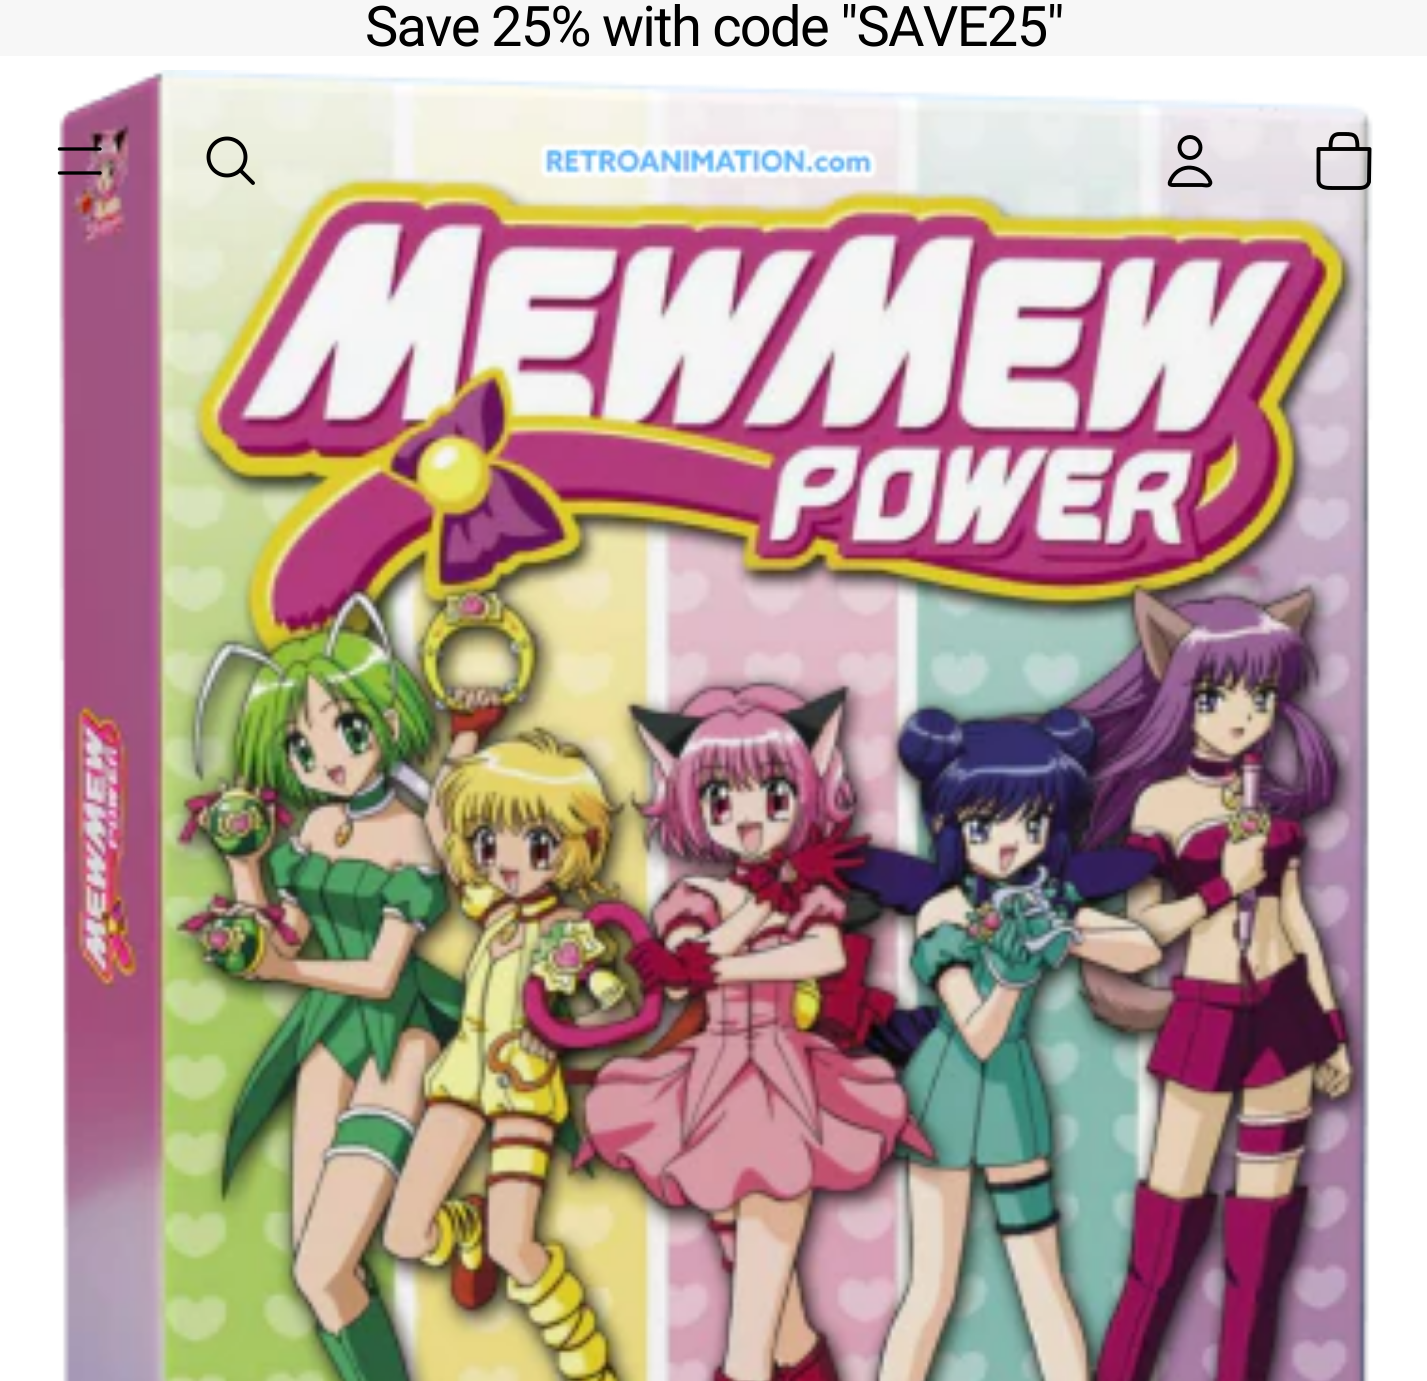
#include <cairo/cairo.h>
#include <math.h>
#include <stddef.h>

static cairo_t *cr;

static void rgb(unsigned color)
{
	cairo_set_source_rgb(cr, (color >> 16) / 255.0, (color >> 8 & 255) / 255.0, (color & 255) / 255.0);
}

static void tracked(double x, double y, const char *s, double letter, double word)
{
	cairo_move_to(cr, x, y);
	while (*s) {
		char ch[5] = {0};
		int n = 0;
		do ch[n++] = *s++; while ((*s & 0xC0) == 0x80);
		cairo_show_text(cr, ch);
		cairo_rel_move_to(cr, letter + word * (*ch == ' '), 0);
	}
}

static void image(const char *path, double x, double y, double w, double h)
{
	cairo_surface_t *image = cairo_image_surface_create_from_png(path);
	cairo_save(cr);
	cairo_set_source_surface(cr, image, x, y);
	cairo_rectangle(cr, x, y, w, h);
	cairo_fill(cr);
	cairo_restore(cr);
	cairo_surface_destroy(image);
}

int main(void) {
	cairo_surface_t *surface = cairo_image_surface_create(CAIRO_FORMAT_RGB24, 1427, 1381);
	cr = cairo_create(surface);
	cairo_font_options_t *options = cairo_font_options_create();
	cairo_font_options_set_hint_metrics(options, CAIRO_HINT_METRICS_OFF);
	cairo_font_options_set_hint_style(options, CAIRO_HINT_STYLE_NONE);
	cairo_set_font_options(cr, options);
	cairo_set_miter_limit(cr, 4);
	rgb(0xffffff);
	cairo_paint(cr);
	rgb(0xf7f7f7);
	cairo_rectangle(cr, 0, 0, 1427, 56);
	cairo_fill(cr);
	image("img/2.png", 59, 70, 1314, 1311);
	cairo_new_path(cr);
	cairo_move_to(cr, 59.5, 149);
	cairo_line_to(cr, 100, 149);
	cairo_move_to(cr, 59.5, 173);
	cairo_line_to(cr, 100, 173);
	rgb(0x000000);
	cairo_set_line_width(cr, 3.4);
	cairo_set_line_cap(cr, CAIRO_LINE_CAP_ROUND);
	cairo_stroke(cr);
	cairo_arc(cr, 227, 157, 18.5, 0, 2 * M_PI);
	cairo_set_line_width(cr, 3.9);
	cairo_set_line_cap(cr, CAIRO_LINE_CAP_BUTT);
	cairo_stroke(cr);
	cairo_new_path(cr);
	cairo_move_to(cr, 240.5, 170.5);
	cairo_line_to(cr, 253, 183);
	cairo_set_line_cap(cr, CAIRO_LINE_CAP_ROUND);
	cairo_set_line_join(cr, CAIRO_LINE_JOIN_ROUND);
	cairo_stroke(cr);
	image("img/1.png", 539, 143, 338, 36);
	cairo_arc(cr, 1190, 147.5, 10.5, 0, 2 * M_PI);
	cairo_set_line_cap(cr, CAIRO_LINE_CAP_BUTT);
	cairo_set_line_join(cr, CAIRO_LINE_JOIN_MITER);
	cairo_stroke(cr);
	cairo_new_path(cr);
	cairo_move_to(cr, 1171.5, 178.5);
	cairo_curve_to(cr, 1167.5, 186, 1170, 185, 1178, 185);
	cairo_line_to(cr, 1202, 185);
	cairo_curve_to(cr, 1203, 185, 1209, 186.5, 1210, 184);
	cairo_curve_to(cr, 1211, 182.5, 1210, 181.5, 1209.5, 180);
	cairo_curve_to(cr, 1201, 165, 1180.5, 162.5, 1171.5, 178.5);
	cairo_set_line_cap(cr, CAIRO_LINE_CAP_ROUND);
	cairo_set_line_join(cr, CAIRO_LINE_JOIN_ROUND);
	cairo_stroke(cr);
	cairo_new_path(cr);
	cairo_move_to(cr, 1318.5, 149);
	cairo_line_to(cr, 1369.5, 149);
	cairo_line_to(cr, 1369, 182);
	cairo_curve_to(cr, 1367, 188.5, 1361, 188, 1355.5, 188);
	cairo_line_to(cr, 1332.5, 188);
	cairo_curve_to(cr, 1326.5, 188, 1318.5, 188, 1318.5, 180);
	cairo_close_path(cr);
	cairo_move_to(cr, 1339.5, 134);
	cairo_curve_to(cr, 1354, 134, 1357.5, 133, 1357.5, 149);
	cairo_line_to(cr, 1330.5, 149);
	cairo_curve_to(cr, 1330.5, 142.5, 1330.5, 134, 1339.5, 134);
	cairo_stroke(cr);
	cairo_select_font_face(cr, "Roboto", CAIRO_FONT_SLANT_NORMAL, CAIRO_FONT_WEIGHT_NORMAL);
	cairo_set_font_size(cr, 56);
	tracked(365, 46, "Save 25% with code \"SAVE25\"", -1.7, 0);
	cairo_surface_write_to_png(surface, "page.png");
	cairo_font_options_destroy(options);
	cairo_destroy(cr);
	cairo_surface_destroy(surface);
	return 0;
}
